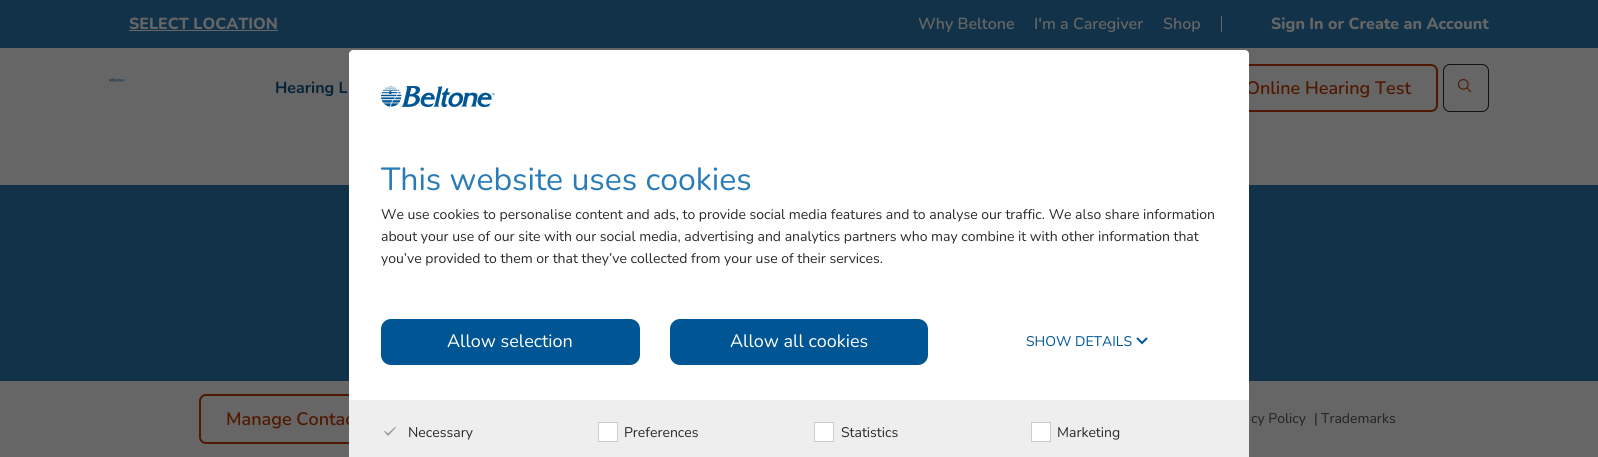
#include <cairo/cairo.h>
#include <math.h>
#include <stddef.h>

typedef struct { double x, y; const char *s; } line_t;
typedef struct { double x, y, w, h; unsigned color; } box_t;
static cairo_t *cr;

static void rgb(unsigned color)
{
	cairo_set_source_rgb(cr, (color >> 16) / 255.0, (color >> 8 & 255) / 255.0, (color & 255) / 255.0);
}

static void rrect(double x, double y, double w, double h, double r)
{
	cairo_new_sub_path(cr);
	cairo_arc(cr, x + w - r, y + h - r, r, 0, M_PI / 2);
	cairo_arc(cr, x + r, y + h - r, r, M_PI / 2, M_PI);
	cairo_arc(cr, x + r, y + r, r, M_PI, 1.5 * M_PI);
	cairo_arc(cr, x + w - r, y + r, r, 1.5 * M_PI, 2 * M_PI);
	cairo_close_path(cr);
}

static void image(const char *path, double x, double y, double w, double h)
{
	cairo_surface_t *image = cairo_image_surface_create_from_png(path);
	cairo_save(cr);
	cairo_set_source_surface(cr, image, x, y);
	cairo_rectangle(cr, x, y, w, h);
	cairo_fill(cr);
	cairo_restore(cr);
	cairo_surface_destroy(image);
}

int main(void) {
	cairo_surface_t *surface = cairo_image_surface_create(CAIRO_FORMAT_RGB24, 1598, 457);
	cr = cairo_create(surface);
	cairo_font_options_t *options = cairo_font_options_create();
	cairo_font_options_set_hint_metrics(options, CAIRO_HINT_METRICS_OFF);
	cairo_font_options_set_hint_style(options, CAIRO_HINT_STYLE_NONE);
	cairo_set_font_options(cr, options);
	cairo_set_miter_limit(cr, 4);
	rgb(0x666666);
	cairo_paint(cr);
	{
		static const box_t items[] = {
			{0, 0, 1598, 48, 0x113249},
			{129, 30, 149, 1, 0x666666},
			{1221, 16, 1, 16, 0x666666},
		};
		for (size_t i = 0; i < sizeof items / sizeof *items; i++) {
			rgb(items[i].color);
			cairo_rectangle(cr, items[i].x, items[i].y, items[i].w, items[i].h);
			cairo_fill(cr);
		}
	}
	image("img/1.png", 109, 78, 16, 4);
	rrect(1220, 65, 217, 46, 6);
	rgb(0x511800);
	cairo_stroke(cr);
	rrect(1443.5, 64.5, 45, 47, 6.5);
	rgb(0x101010);
	cairo_set_line_width(cr, 1);
	cairo_stroke(cr);
	image("img/2.png", 1458, 79, 14, 14);
	rgb(0x113249);
	cairo_rectangle(cr, 0, 185, 1598, 196);
	cairo_fill(cr);
	rrect(200, 395, 288, 48, 6);
	rgb(0x511800);
	cairo_set_line_width(cr, 2);
	cairo_stroke(cr);
	cairo_select_font_face(cr, "Nunito ExtraBold", CAIRO_FONT_SLANT_NORMAL, CAIRO_FONT_WEIGHT_NORMAL);
	cairo_set_font_size(cr, 16);
	rgb(0x666666);
	cairo_move_to(cr, 129, 29);
	cairo_show_text(cr, "SELECT LOCATION");
	cairo_select_font_face(cr, "Nunito SemiBold", CAIRO_FONT_SLANT_NORMAL, CAIRO_FONT_WEIGHT_NORMAL);
	{
		static const line_t items[] = {
			{918, 29, "Why Beltone"},
			{1034, 29, "I'm a Caregiver"},
			{1163, 29, "Shop"},
		};
		for (size_t i = 0; i < sizeof items / sizeof *items; i++) {
			cairo_move_to(cr, items[i].x, items[i].y);
			cairo_show_text(cr, items[i].s);
		}
	}
	cairo_select_font_face(cr, "Nunito ExtraBold", CAIRO_FONT_SLANT_NORMAL, CAIRO_FONT_WEIGHT_NORMAL);
	cairo_move_to(cr, 1271, 29);
	cairo_show_text(cr, "Sign In or Create an Account");
	cairo_select_font_face(cr, "Nunito", CAIRO_FONT_SLANT_NORMAL, CAIRO_FONT_WEIGHT_BOLD);
	rgb(0x062236);
	cairo_move_to(cr, 275, 93);
	cairo_show_text(cr, "Hearing L");
	cairo_select_font_face(cr, "Nunito SemiBold", CAIRO_FONT_SLANT_NORMAL, CAIRO_FONT_WEIGHT_NORMAL);
	cairo_set_font_size(cr, 18);
	rgb(0x511800);
	cairo_move_to(cr, 1246, 94);
	cairo_show_text(cr, "Online Hearing Test");
	cairo_move_to(cr, 226, 425);
	cairo_show_text(cr, "Manage Contac");
	rgb(0xffffff);
	cairo_new_path(cr);
	cairo_move_to(cr, 353, 50);
	cairo_line_to(cr, 1245, 50);
	cairo_curve_to(cr, 1247, 50, 1249, 52, 1249, 54);
	cairo_line_to(cr, 1249, 457);
	cairo_line_to(cr, 349, 457);
	cairo_line_to(cr, 349, 54);
	cairo_curve_to(cr, 349, 52, 351, 50, 353, 50);
	cairo_close_path(cr);
	cairo_fill(cr);
	rgb(0xeeeeee);
	cairo_rectangle(cr, 349, 400, 900, 57);
	cairo_fill(cr);
	rgb(0xffffff);
	cairo_rectangle(cr, 1031.5, 422.5, 19, 19);
	cairo_fill_preserve(cr);
	rgb(0xcccccc);
	cairo_set_line_width(cr, 1);
	cairo_stroke(cr);
	cairo_select_font_face(cr, "Nunito", CAIRO_FONT_SLANT_NORMAL, CAIRO_FONT_WEIGHT_NORMAL);
	cairo_set_font_size(cr, 14);
	rgb(0x292929);
	cairo_move_to(cr, 1057, 437);
	cairo_show_text(cr, "Marketing");
	rgb(0xffffff);
	cairo_rectangle(cr, 814.5, 422.5, 19, 19);
	cairo_fill_preserve(cr);
	rgb(0xcccccc);
	cairo_stroke(cr);
	rgb(0x292929);
	cairo_move_to(cr, 841, 437);
	cairo_show_text(cr, "Statistics");
	rgb(0xffffff);
	cairo_rectangle(cr, 598.5, 422.5, 19, 19);
	cairo_fill_preserve(cr);
	rgb(0xcccccc);
	cairo_stroke(cr);
	rgb(0x292929);
	cairo_move_to(cr, 624, 437);
	cairo_show_text(cr, "Preferences");
	image("img/4.png", 384, 427, 12, 9);
	cairo_move_to(cr, 408, 437);
	cairo_show_text(cr, "Necessary");
	cairo_new_path(cr);
	cairo_move_to(cr, 1137, 338);
	cairo_line_to(cr, 1142, 343);
	cairo_line_to(cr, 1147, 338);
	rgb(0x005694);
	cairo_set_line_width(cr, 2);
	cairo_stroke(cr);
	cairo_move_to(cr, 1026, 346);
	cairo_show_text(cr, "SHOW DETAILS");
	rrect(670, 319, 258, 46, 10);
	cairo_fill(cr);
	cairo_set_font_size(cr, 18);
	rgb(0xffffff);
	cairo_move_to(cr, 730, 347);
	cairo_show_text(cr, "Allow all cookies");
	rgb(0x005694);
	rrect(381, 319, 259, 46, 10);
	cairo_fill(cr);
	rgb(0xffffff);
	cairo_move_to(cr, 447, 347);
	cairo_show_text(cr, "Allow selection");
	cairo_set_font_size(cr, 14);
	rgb(0x292929);
	{
		static const line_t items[] = {
			{381, 263, "you’ve provided to them or that they’ve collected from your use of their services."},
			{381, 241, "about your use of our site with our social media, advertising and analytics partners who may combine it with other information that"},
			{381, 219, "We use cookies to personalise content and ads, to provide social media features and to analyse our traffic. We also share information"},
		};
		for (size_t i = 0; i < sizeof items / sizeof *items; i++) {
			cairo_move_to(cr, items[i].x, items[i].y);
			cairo_show_text(cr, items[i].s);
		}
	}
	image("img/3.png", 381, 86, 114, 21);
	cairo_set_font_size(cr, 32);
	rgb(0x2a7cb7);
	cairo_move_to(cr, 381, 190);
	cairo_show_text(cr, "This website uses cookies");
	cairo_set_font_size(cr, 14);
	rgb(0x222222);
	{
		static const line_t items[] = {
			{1251, 423, "cy Policy"},
			{1314, 423, "|"},
			{1321, 423, "Trademarks"},
		};
		for (size_t i = 0; i < sizeof items / sizeof *items; i++) {
			cairo_move_to(cr, items[i].x, items[i].y);
			cairo_show_text(cr, items[i].s);
		}
	}
	cairo_surface_write_to_png(surface, "page.png");
	cairo_font_options_destroy(options);
	cairo_destroy(cr);
	cairo_surface_destroy(surface);
	return 0;
}
